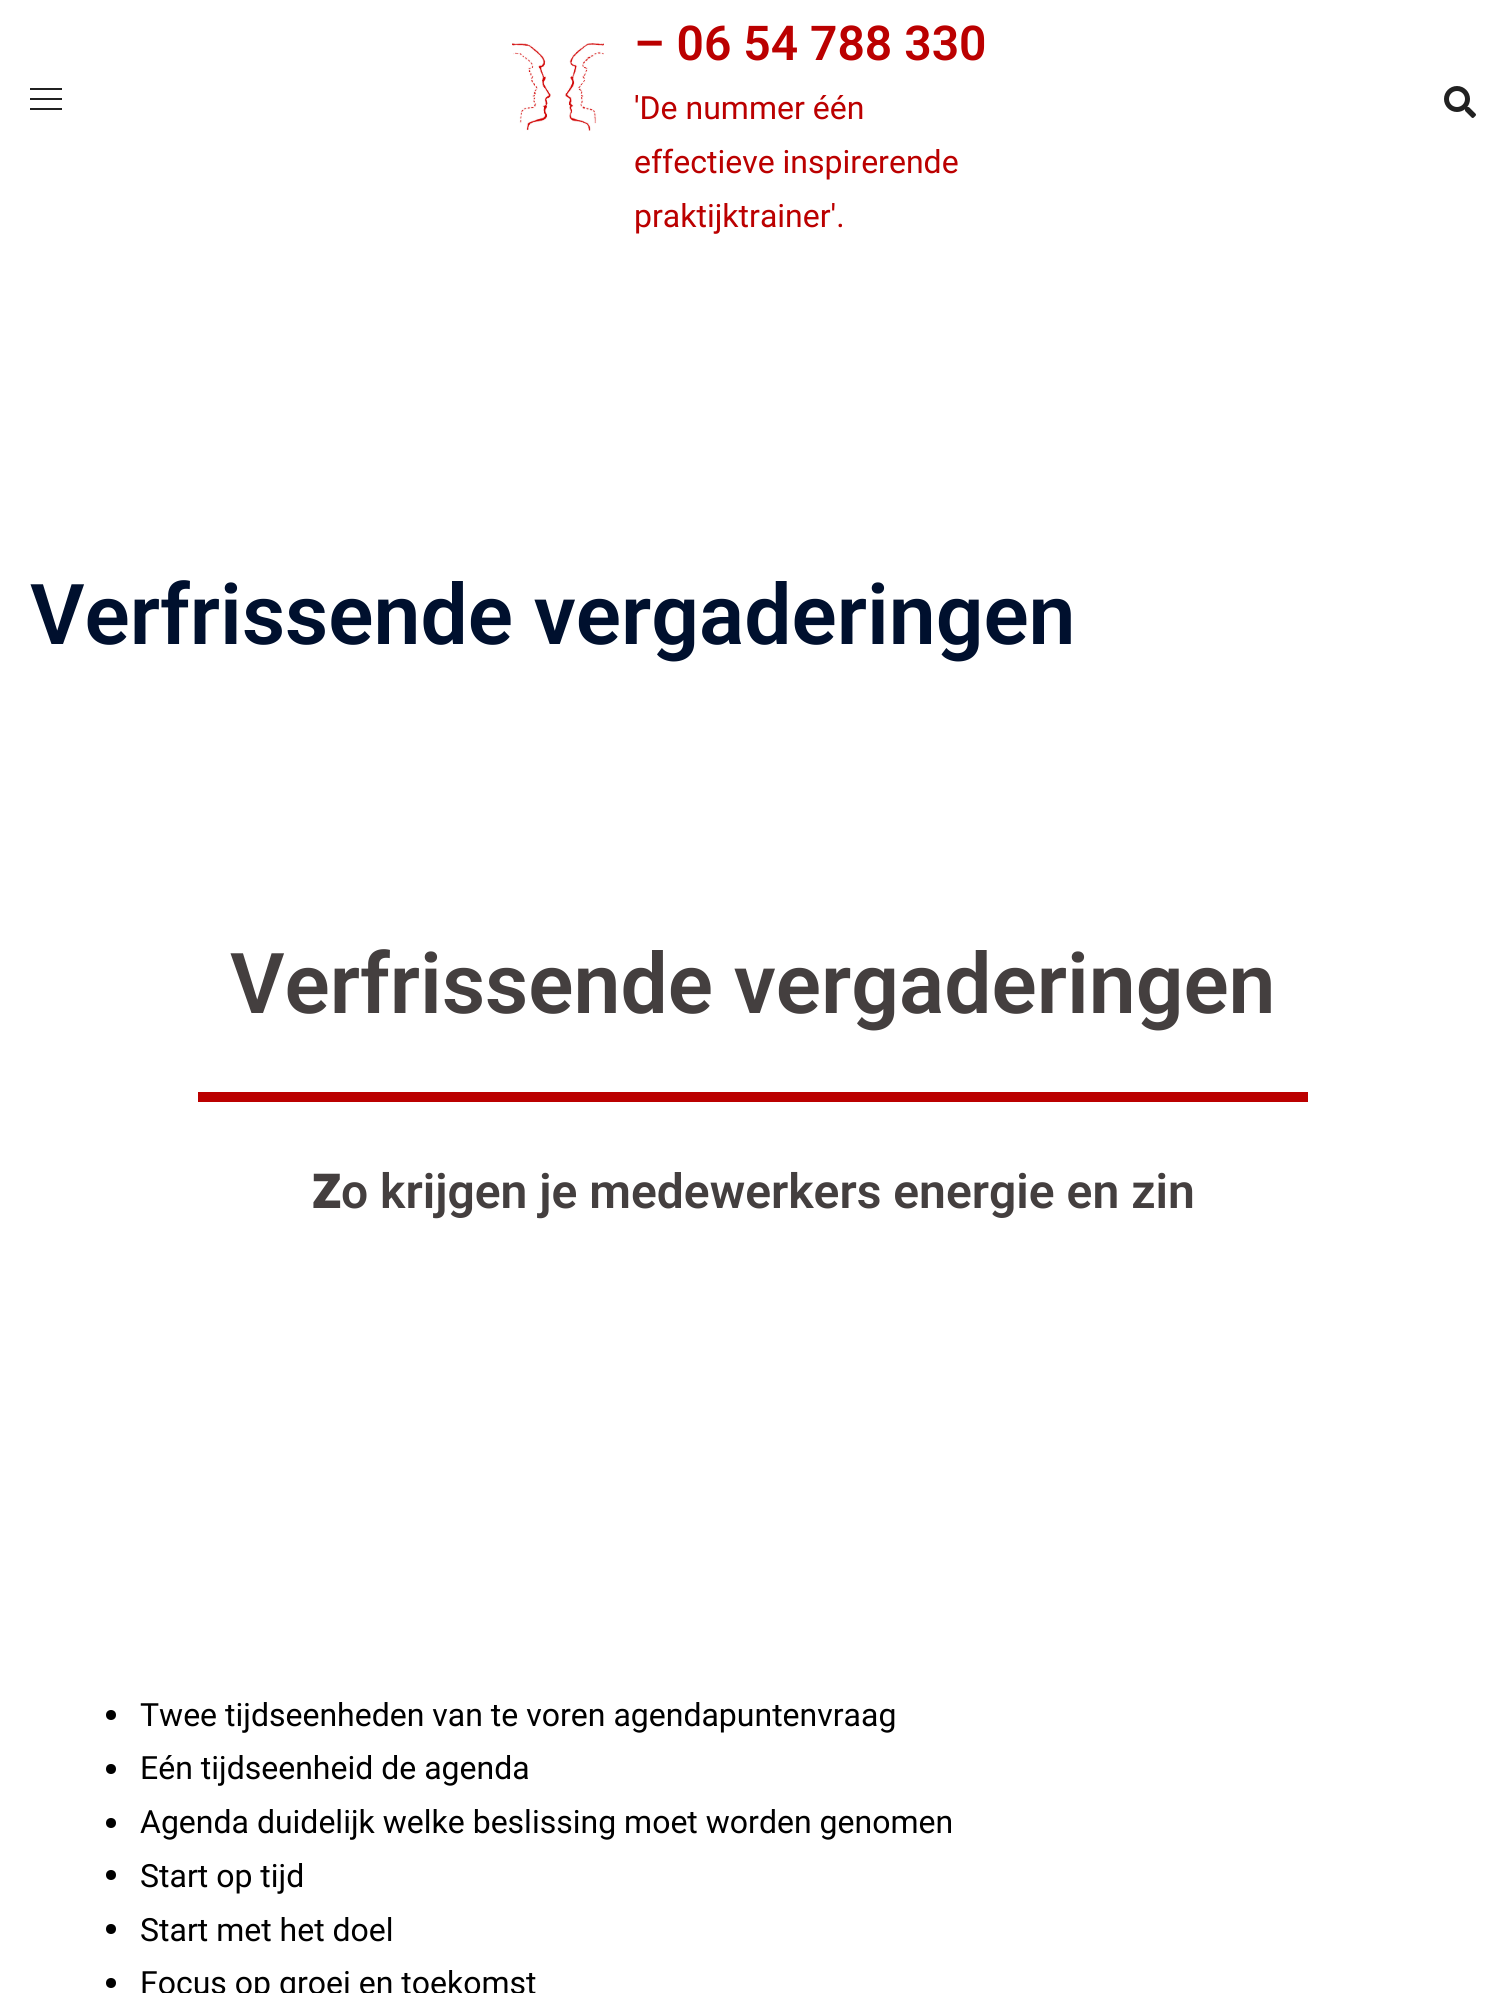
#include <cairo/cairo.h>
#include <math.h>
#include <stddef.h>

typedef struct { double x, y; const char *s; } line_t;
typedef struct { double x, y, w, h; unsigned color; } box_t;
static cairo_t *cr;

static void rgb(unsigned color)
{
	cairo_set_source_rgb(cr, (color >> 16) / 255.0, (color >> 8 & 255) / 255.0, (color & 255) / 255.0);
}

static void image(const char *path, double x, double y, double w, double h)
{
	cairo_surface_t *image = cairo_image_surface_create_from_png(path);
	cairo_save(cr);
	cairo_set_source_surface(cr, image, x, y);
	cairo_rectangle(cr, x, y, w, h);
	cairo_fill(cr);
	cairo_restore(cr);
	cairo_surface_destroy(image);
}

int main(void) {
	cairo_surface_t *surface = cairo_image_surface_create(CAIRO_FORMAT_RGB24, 1506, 1993);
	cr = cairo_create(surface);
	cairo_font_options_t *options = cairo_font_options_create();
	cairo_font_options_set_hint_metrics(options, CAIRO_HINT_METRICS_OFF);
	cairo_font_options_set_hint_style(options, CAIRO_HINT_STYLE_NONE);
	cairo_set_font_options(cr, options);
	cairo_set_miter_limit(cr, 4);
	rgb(0xffffff);
	cairo_paint(cr);
	{
		static const box_t items[] = {
			{30, 88, 32, 2, 0x212121},
			{30, 98, 32, 2, 0x212121},
			{30, 108, 32, 2, 0x212121},
		};
		for (size_t i = 0; i < sizeof items / sizeof *items; i++) {
			rgb(items[i].color);
			cairo_rectangle(cr, items[i].x, items[i].y, items[i].w, items[i].h);
			cairo_fill(cr);
		}
	}
	image("img/1.png", 512, 43, 92, 88);
	image("img/2.png", 1444, 86, 32, 32);
	rgb(0xbb0000);
	cairo_rectangle(cr, 198, 1092, 1110, 10);
	cairo_fill(cr);
	rgb(0x000000);
	cairo_arc(cr, 111, 1715, 5, 0, 2 * M_PI);
	cairo_fill(cr);
	cairo_arc(cr, 111, 1769, 5, 0, 2 * M_PI);
	cairo_fill(cr);
	cairo_arc(cr, 111, 1823, 5, 0, 2 * M_PI);
	cairo_fill(cr);
	cairo_arc(cr, 111, 1875, 5, 0, 2 * M_PI);
	cairo_fill(cr);
	cairo_arc(cr, 111, 1929, 5, 0, 2 * M_PI);
	cairo_fill(cr);
	cairo_arc(cr, 111, 1983, 5, 0, 2 * M_PI);
	cairo_fill(cr);
	cairo_select_font_face(cr, "Roboto SemiBold", CAIRO_FONT_SLANT_NORMAL, CAIRO_FONT_WEIGHT_NORMAL);
	cairo_set_font_size(cr, 48);
	rgb(0xbb0000);
	cairo_move_to(cr, 634, 60);
	cairo_show_text(cr, "– 06 54 788 330");
	cairo_select_font_face(cr, "Roboto", CAIRO_FONT_SLANT_NORMAL, CAIRO_FONT_WEIGHT_NORMAL);
	cairo_set_font_size(cr, 32);
	{
		static const line_t items[] = {
			{634, 119, "'De nummer één"},
			{634, 173, "effectieve inspirerende"},
			{634, 227, "praktijktrainer'."},
		};
		for (size_t i = 0; i < sizeof items / sizeof *items; i++) {
			cairo_move_to(cr, items[i].x, items[i].y);
			cairo_show_text(cr, items[i].s);
		}
	}
	cairo_select_font_face(cr, "Roboto SemiBold", CAIRO_FONT_SLANT_NORMAL, CAIRO_FONT_WEIGHT_NORMAL);
	cairo_set_font_size(cr, 84);
	rgb(0x00102e);
	cairo_move_to(cr, 30, 644);
	cairo_show_text(cr, "Verfrissende vergaderingen");
	rgb(0x443f3f);
	cairo_move_to(cr, 230, 1013);
	cairo_show_text(cr, "Verfrissende vergaderingen");
	cairo_select_font_face(cr, "Noto Sans Black", CAIRO_FONT_SLANT_NORMAL, CAIRO_FONT_WEIGHT_NORMAL);
	cairo_set_font_size(cr, 48);
	cairo_move_to(cr, 312, 1208);
	cairo_show_text(cr, "Z");
	cairo_select_font_face(cr, "Roboto SemiBold", CAIRO_FONT_SLANT_NORMAL, CAIRO_FONT_WEIGHT_NORMAL);
	cairo_move_to(cr, 341, 1208);
	cairo_show_text(cr, "o krijgen je medewerkers energie en zin");
	cairo_select_font_face(cr, "Roboto", CAIRO_FONT_SLANT_NORMAL, CAIRO_FONT_WEIGHT_NORMAL);
	cairo_set_font_size(cr, 32);
	rgb(0x000000);
	{
		static const line_t items[] = {
			{140, 1726, "Twee tijdseenheden van te voren agendapuntenvraag"},
			{140, 1779, "Eén tijdseenheid de agenda"},
			{140, 1833, "Agenda duidelijk welke beslissing moet worden genomen"},
			{140, 1887, "Start op tijd"},
			{140, 1941, "Start met het doel"},
			{140, 1994, "Focus op groei en toekomst"},
		};
		for (size_t i = 0; i < sizeof items / sizeof *items; i++) {
			cairo_move_to(cr, items[i].x, items[i].y);
			cairo_show_text(cr, items[i].s);
		}
	}
	cairo_surface_write_to_png(surface, "page.png");
	cairo_font_options_destroy(options);
	cairo_destroy(cr);
	cairo_surface_destroy(surface);
	return 0;
}
